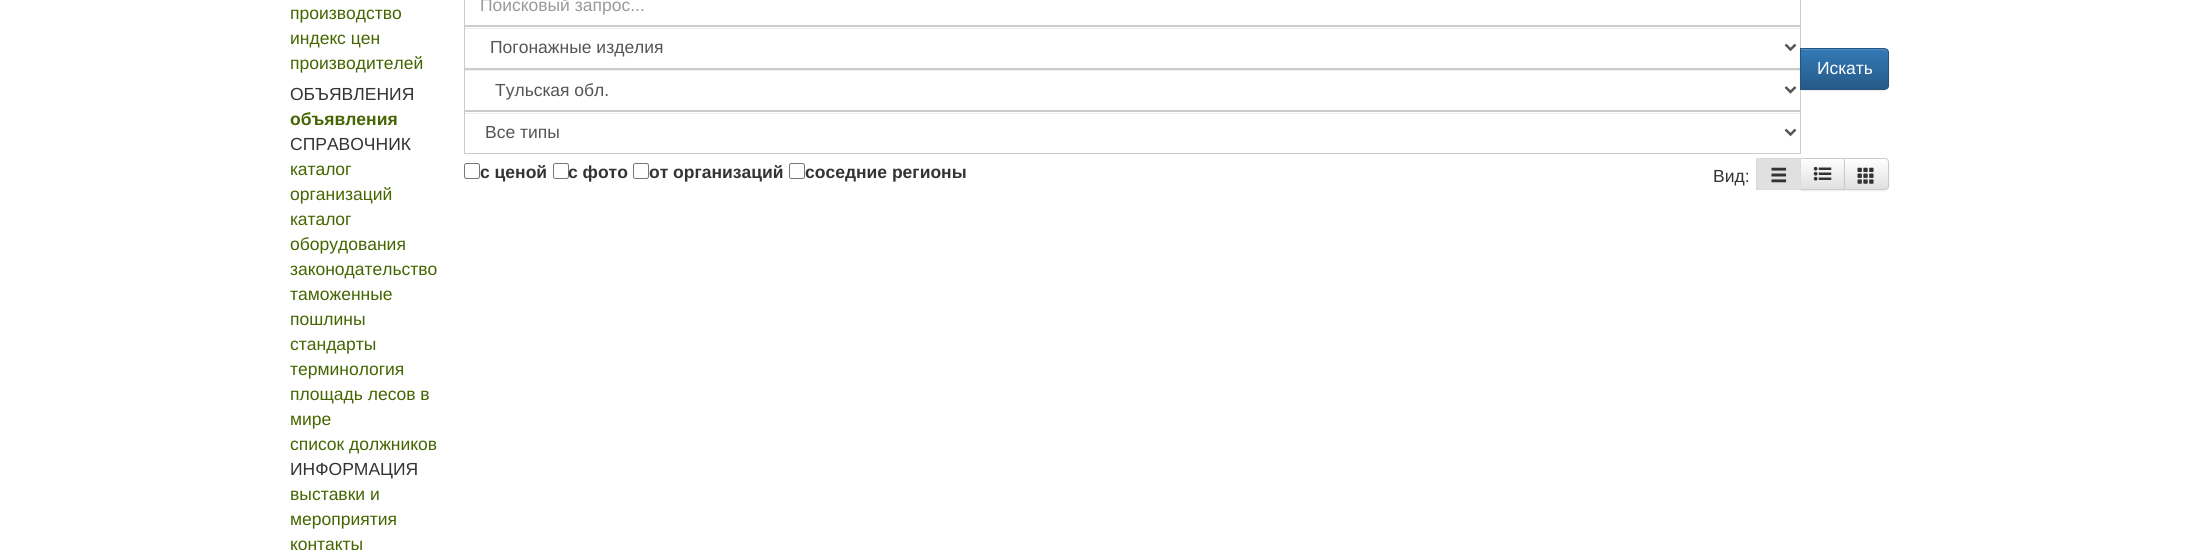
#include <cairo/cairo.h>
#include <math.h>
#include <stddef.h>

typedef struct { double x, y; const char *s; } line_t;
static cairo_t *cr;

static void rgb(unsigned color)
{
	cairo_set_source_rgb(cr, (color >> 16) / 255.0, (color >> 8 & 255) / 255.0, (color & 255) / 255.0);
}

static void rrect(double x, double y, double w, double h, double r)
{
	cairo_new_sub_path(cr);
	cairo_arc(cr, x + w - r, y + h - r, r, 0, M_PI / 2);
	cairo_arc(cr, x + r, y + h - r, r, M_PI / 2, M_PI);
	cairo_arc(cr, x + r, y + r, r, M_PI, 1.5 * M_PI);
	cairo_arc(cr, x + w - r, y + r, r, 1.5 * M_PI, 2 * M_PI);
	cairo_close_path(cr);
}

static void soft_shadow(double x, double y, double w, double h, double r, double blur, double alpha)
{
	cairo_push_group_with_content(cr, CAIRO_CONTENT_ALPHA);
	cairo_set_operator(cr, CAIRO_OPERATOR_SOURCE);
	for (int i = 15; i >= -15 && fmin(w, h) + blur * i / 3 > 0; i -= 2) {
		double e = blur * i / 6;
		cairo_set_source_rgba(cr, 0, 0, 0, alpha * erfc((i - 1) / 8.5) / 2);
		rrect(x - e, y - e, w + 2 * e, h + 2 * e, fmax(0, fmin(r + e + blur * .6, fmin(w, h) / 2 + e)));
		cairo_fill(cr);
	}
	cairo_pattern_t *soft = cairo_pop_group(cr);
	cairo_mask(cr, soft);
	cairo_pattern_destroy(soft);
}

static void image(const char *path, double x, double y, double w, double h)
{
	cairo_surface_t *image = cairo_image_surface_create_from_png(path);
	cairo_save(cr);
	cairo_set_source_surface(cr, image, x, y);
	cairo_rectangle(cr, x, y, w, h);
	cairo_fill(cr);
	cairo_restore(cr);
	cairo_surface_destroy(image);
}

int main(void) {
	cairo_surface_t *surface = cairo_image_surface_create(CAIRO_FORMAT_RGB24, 2197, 560);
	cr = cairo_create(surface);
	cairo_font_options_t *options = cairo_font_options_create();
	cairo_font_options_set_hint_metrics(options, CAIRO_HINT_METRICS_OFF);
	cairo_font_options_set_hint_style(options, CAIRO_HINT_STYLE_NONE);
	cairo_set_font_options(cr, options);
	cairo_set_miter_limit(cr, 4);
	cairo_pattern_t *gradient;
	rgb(0xffffff);
	cairo_paint(cr);
	cairo_rectangle(cr, 464.5, -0.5, 1336, 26);
	rgb(0xcccccc);
	cairo_set_line_width(cr, 1);
	cairo_stroke(cr);
	rgb(0xececec);
	cairo_rectangle(cr, 465, 28, 1335, 1);
	cairo_fill(cr);
	cairo_rectangle(cr, 464.5, 26.5, 1336, 42);
	rgb(0xcccccc);
	cairo_stroke(cr);
	cairo_new_path(cr);
	cairo_move_to(cr, 1785.5, 44.5);
	cairo_line_to(cr, 1790.5, 49.5);
	cairo_line_to(cr, 1795.5, 44.5);
	rgb(0x555555);
	cairo_set_line_width(cr, 2.5);
	cairo_stroke(cr);
	rgb(0xececec);
	cairo_rectangle(cr, 465, 70, 1335, 1);
	cairo_fill(cr);
	cairo_rectangle(cr, 464.5, 69.5, 1336, 41);
	rgb(0xcccccc);
	cairo_set_line_width(cr, 1);
	cairo_stroke(cr);
	rgb(0x000000);
	soft_shadow(1800, 49, 89, 42, 5, 0.5, 0.07);
	cairo_save(cr);
	cairo_new_path(cr);
	cairo_move_to(cr, 1800, 48);
	cairo_line_to(cr, 1884, 48);
	cairo_curve_to(cr, 1887, 48, 1889, 50, 1889, 53);
	cairo_line_to(cr, 1889, 85);
	cairo_curve_to(cr, 1889, 88, 1887, 90, 1884, 90);
	cairo_line_to(cr, 1800, 90);
	cairo_close_path(cr);
	cairo_clip(cr);
	gradient = cairo_pattern_create_linear(1844, 49, 1844, 89);
	cairo_pattern_add_color_stop_rgba(gradient, 0, 0.2, 0.478, 0.718, 1);
	cairo_pattern_add_color_stop_rgba(gradient, 1, 0.149, 0.353, 0.533, 1);
	cairo_set_source(cr, gradient);
	cairo_pattern_destroy(gradient);
	cairo_rectangle(cr, 1801, 49, 88, 40);
	cairo_fill(cr);
	cairo_restore(cr);
	rgb(0x528ec1);
	cairo_new_path(cr);
	cairo_move_to(cr, 1801, 50);
	cairo_line_to(cr, 1884, 50);
	cairo_curve_to(cr, 1886, 50, 1888, 52, 1888, 54);
	cairo_line_to(cr, 1888, 53);
	cairo_curve_to(cr, 1888, 51, 1886, 49, 1884, 49);
	cairo_line_to(cr, 1801, 49);
	cairo_close_path(cr);
	cairo_fill(cr);
	cairo_new_path(cr);
	cairo_move_to(cr, 1800.5, 48.5);
	cairo_line_to(cr, 1884, 48.5);
	cairo_curve_to(cr, 1886.5, 48.5, 1888.5, 50.5, 1888.5, 53);
	cairo_line_to(cr, 1888.5, 85);
	cairo_curve_to(cr, 1888.5, 87.5, 1886.5, 89.5, 1884, 89.5);
	cairo_line_to(cr, 1800.5, 89.5);
	cairo_close_path(cr);
	rgb(0x245580);
	cairo_stroke(cr);
	cairo_new_path(cr);
	cairo_move_to(cr, 1785.5, 87);
	cairo_line_to(cr, 1790.5, 92);
	cairo_line_to(cr, 1795.5, 87);
	rgb(0x555555);
	cairo_set_line_width(cr, 2.5);
	cairo_stroke(cr);
	rgb(0xececec);
	cairo_rectangle(cr, 465, 113, 1335, 1);
	cairo_fill(cr);
	cairo_rectangle(cr, 464.5, 111.5, 1336, 42);
	rgb(0xcccccc);
	cairo_set_line_width(cr, 1);
	cairo_stroke(cr);
	cairo_new_path(cr);
	cairo_move_to(cr, 1785.5, 129.5);
	cairo_line_to(cr, 1790.5, 134.5);
	cairo_line_to(cr, 1795.5, 129.5);
	rgb(0x555555);
	cairo_set_line_width(cr, 2.5);
	cairo_stroke(cr);
	rrect(464.5, 163.5, 15, 15, 2);
	rgb(0x767676);
	cairo_set_line_width(cr, 1);
	cairo_stroke(cr);
	rrect(553.5, 163.5, 15, 15, 2);
	cairo_stroke(cr);
	rrect(633.5, 163.5, 15, 15, 2);
	cairo_stroke(cr);
	rrect(789.5, 163.5, 15, 15, 2);
	cairo_stroke(cr);
	rgb(0x000000);
	soft_shadow(1800, 159, 45, 32, 0, 0.5, 0.07);
	gradient = cairo_pattern_create_linear(1823, 159, 1823, 189);
	cairo_pattern_add_color_stop_rgba(gradient, 0, 1, 1, 1, 1);
	cairo_pattern_add_color_stop_rgba(gradient, 1, 0.878, 0.878, 0.878, 1);
	cairo_set_source(cr, gradient);
	cairo_pattern_destroy(gradient);
	cairo_rectangle(cr, 1801, 159, 43, 30);
	cairo_fill(cr);
	cairo_rectangle(cr, 1800.5, 158.5, 44, 31);
	rgb(0xcccccc);
	cairo_stroke(cr);
	rgb(0xe0e0e0);
	cairo_rectangle(cr, 1756.5, 158.5, 44, 31);
	cairo_fill_preserve(cr);
	rgb(0xdbdbdb);
	cairo_stroke(cr);
	image("img/1.png", 1771, 167, 16, 16);
	image("img/2.png", 1813, 166, 19, 15);
	rgb(0x000000);
	soft_shadow(1844, 159, 45, 32, 4, 0.5, 0.07);
	cairo_save(cr);
	cairo_new_path(cr);
	cairo_move_to(cr, 1844, 158);
	cairo_line_to(cr, 1885, 158);
	cairo_curve_to(cr, 1887, 158, 1889, 160, 1889, 162);
	cairo_line_to(cr, 1889, 186);
	cairo_curve_to(cr, 1889, 188, 1887, 190, 1885, 190);
	cairo_line_to(cr, 1844, 190);
	cairo_close_path(cr);
	cairo_clip(cr);
	gradient = cairo_pattern_create_linear(1866, 159, 1866, 189);
	cairo_pattern_add_color_stop_rgba(gradient, 0, 1, 1, 1, 1);
	cairo_pattern_add_color_stop_rgba(gradient, 1, 0.878, 0.878, 0.878, 1);
	cairo_set_source(cr, gradient);
	cairo_pattern_destroy(gradient);
	cairo_rectangle(cr, 1845, 159, 44, 30);
	cairo_fill(cr);
	cairo_restore(cr);
	cairo_new_path(cr);
	cairo_move_to(cr, 1844.5, 158.5);
	cairo_line_to(cr, 1885, 158.5);
	cairo_curve_to(cr, 1887, 158.5, 1888.5, 160, 1888.5, 162);
	cairo_line_to(cr, 1888.5, 186);
	cairo_curve_to(cr, 1888.5, 188, 1887, 189.5, 1885, 189.5);
	cairo_line_to(cr, 1844.5, 189.5);
	cairo_close_path(cr);
	rgb(0xcccccc);
	cairo_stroke(cr);
	image("img/3.png", 1857, 167, 17, 17);
	cairo_select_font_face(cr, "Liberation Sans", CAIRO_FONT_SLANT_NORMAL, CAIRO_FONT_WEIGHT_NORMAL);
	cairo_set_font_size(cr, 17.5);
	rgb(0x446500);
	{
		static const line_t items[] = {
			{290, 19, "производство"},
			{290, 44, "индекс цен"},
			{290, 69, "производителей"},
		};
		for (size_t i = 0; i < sizeof items / sizeof *items; i++) {
			cairo_move_to(cr, items[i].x, items[i].y);
			cairo_show_text(cr, items[i].s);
		}
	}
	rgb(0x333333);
	cairo_move_to(cr, 290, 100);
	cairo_show_text(cr, "ОБЪЯВЛЕНИЯ");
	cairo_select_font_face(cr, "Liberation Sans", CAIRO_FONT_SLANT_NORMAL, CAIRO_FONT_WEIGHT_BOLD);
	rgb(0x446500);
	cairo_move_to(cr, 290, 125);
	cairo_show_text(cr, "объявления");
	cairo_select_font_face(cr, "Liberation Sans", CAIRO_FONT_SLANT_NORMAL, CAIRO_FONT_WEIGHT_NORMAL);
	rgb(0x333333);
	cairo_move_to(cr, 290, 150);
	cairo_show_text(cr, "СПРАВОЧНИК");
	rgb(0x446500);
	{
		static const line_t items[] = {
			{290, 175, "каталог"},
			{290, 200, "организаций"},
			{290, 225, "каталог"},
			{290, 250, "оборудования"},
			{290, 275, "законодательство"},
			{290, 300, "таможенные"},
			{290, 325, "пошлины"},
			{290, 350, "стандарты"},
			{290, 375, "терминология"},
			{290, 400, "площадь лесов в"},
			{290, 425, "мире"},
			{290, 450, "список должников"},
		};
		for (size_t i = 0; i < sizeof items / sizeof *items; i++) {
			cairo_move_to(cr, items[i].x, items[i].y);
			cairo_show_text(cr, items[i].s);
		}
	}
	rgb(0x333333);
	cairo_move_to(cr, 290, 475);
	cairo_show_text(cr, "ИНФОРМАЦИЯ");
	rgb(0x446500);
	{
		static const line_t items[] = {
			{290, 500, "выставки и"},
			{290, 525, "мероприятия"},
			{290, 550, "контакты"},
		};
		for (size_t i = 0; i < sizeof items / sizeof *items; i++) {
			cairo_move_to(cr, items[i].x, items[i].y);
			cairo_show_text(cr, items[i].s);
		}
	}
	rgb(0x999999);
	cairo_move_to(cr, 480, 11);
	cairo_show_text(cr, "Поисковый запрос...");
	rgb(0x555555);
	cairo_move_to(cr, 490, 53);
	cairo_show_text(cr, "Погонажные изделия");
	rgb(0xffffff);
	cairo_move_to(cr, 1817, 74);
	cairo_show_text(cr, "Искать");
	rgb(0x555555);
	cairo_move_to(cr, 495, 96);
	cairo_show_text(cr, "Тульская обл.");
	cairo_move_to(cr, 485, 138);
	cairo_show_text(cr, "Все типы");
	cairo_select_font_face(cr, "Liberation Sans", CAIRO_FONT_SLANT_NORMAL, CAIRO_FONT_WEIGHT_BOLD);
	rgb(0x333333);
	{
		static const line_t items[] = {
			{480, 178, "с ценой"},
			{568, 178, "с фото"},
			{649, 178, "от организаций"},
			{805, 178, "соседние регионы"},
		};
		for (size_t i = 0; i < sizeof items / sizeof *items; i++) {
			cairo_move_to(cr, items[i].x, items[i].y);
			cairo_show_text(cr, items[i].s);
		}
	}
	cairo_select_font_face(cr, "Liberation Sans", CAIRO_FONT_SLANT_NORMAL, CAIRO_FONT_WEIGHT_NORMAL);
	cairo_move_to(cr, 1713, 182);
	cairo_show_text(cr, "Вид:");
	cairo_surface_write_to_png(surface, "page.png");
	cairo_font_options_destroy(options);
	cairo_destroy(cr);
	cairo_surface_destroy(surface);
	return 0;
}
